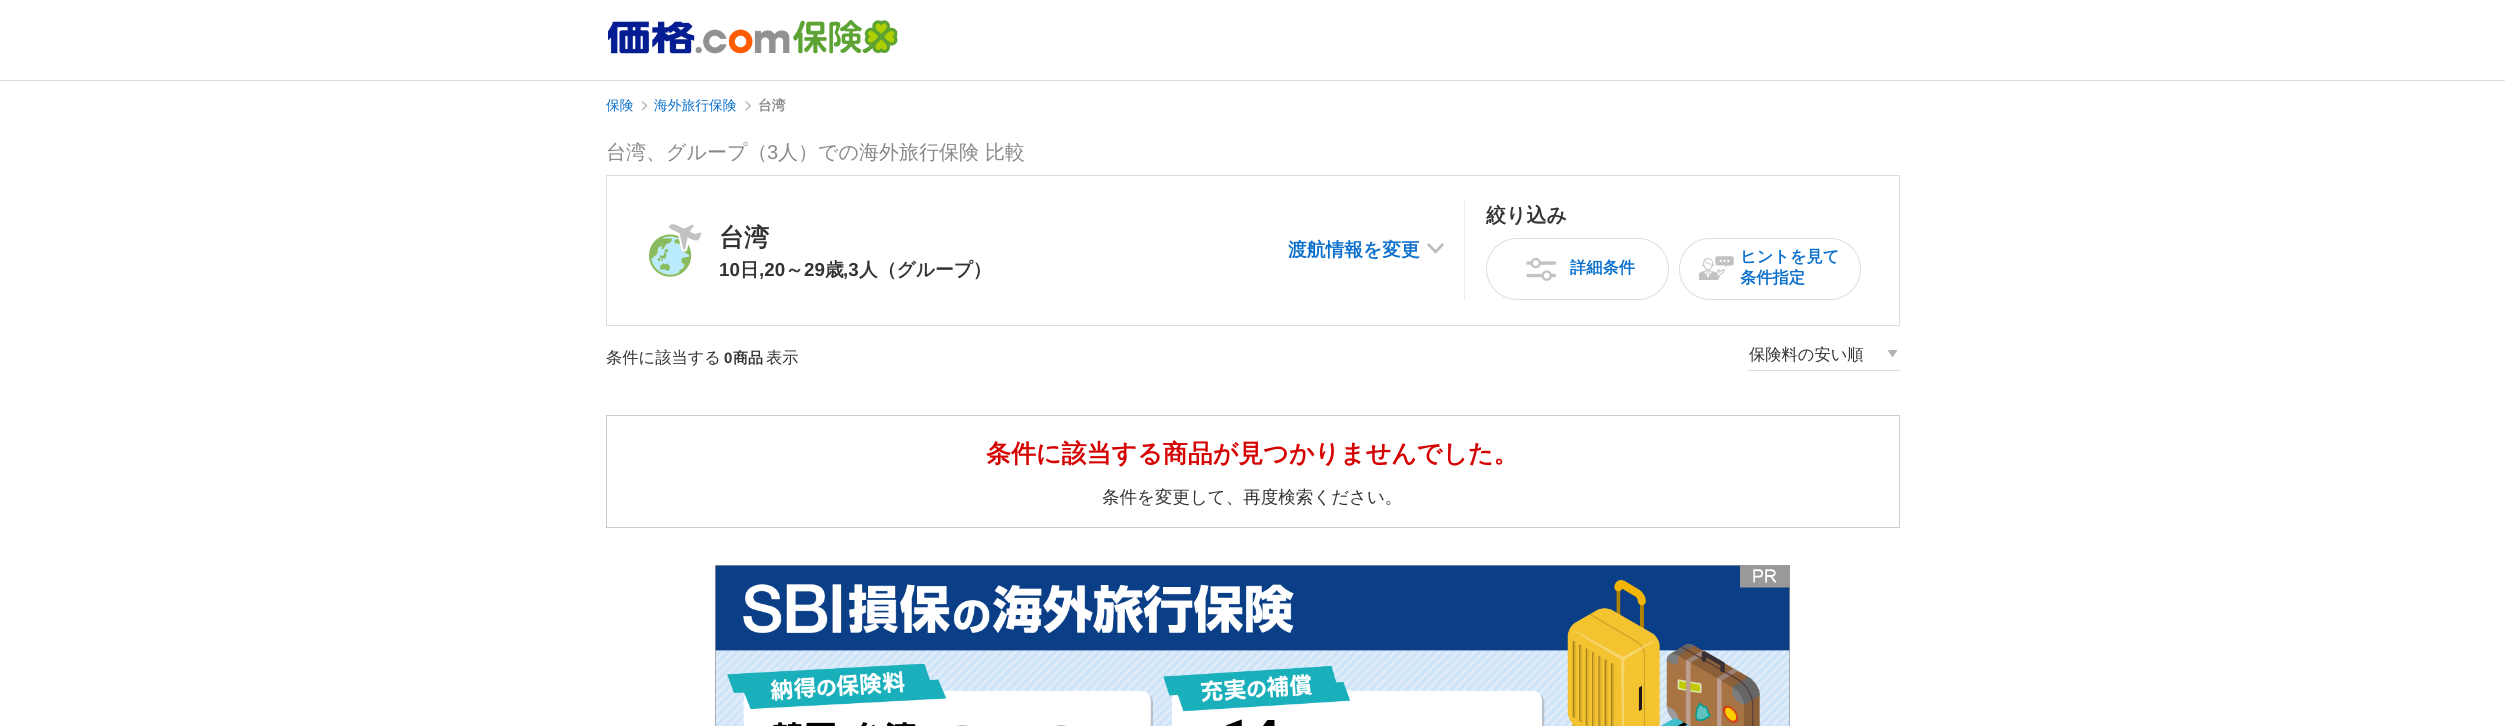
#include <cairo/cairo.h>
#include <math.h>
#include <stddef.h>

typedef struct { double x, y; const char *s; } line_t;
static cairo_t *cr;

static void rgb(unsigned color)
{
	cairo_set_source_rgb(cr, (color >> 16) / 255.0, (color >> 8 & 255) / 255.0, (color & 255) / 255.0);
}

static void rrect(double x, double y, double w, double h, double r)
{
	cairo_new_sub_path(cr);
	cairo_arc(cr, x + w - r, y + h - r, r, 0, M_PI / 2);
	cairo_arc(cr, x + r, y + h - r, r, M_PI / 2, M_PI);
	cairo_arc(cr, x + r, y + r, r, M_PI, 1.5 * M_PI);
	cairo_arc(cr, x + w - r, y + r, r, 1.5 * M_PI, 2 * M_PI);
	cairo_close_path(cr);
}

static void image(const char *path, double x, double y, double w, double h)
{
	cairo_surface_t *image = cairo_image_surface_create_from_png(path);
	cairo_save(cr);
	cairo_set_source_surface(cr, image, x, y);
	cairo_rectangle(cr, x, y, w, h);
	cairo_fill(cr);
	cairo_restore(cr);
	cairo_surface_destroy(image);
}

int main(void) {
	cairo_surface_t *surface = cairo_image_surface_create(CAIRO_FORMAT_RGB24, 2505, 726);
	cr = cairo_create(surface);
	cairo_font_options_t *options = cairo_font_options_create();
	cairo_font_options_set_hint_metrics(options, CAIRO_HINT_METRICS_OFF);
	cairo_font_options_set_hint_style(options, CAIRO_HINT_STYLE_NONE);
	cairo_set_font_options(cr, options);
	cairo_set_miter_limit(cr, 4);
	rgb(0xffffff);
	cairo_paint(cr);
	image("img/1.png", 608, 21, 182, 33);
	image("img/2.png", 793, 20, 105, 34);
	rgb(0xdddddd);
	cairo_rectangle(cr, 0, 80, 2505, 1);
	cairo_fill(cr);
	image("img/3.png", 641, 101, 7, 10);
	image("img/4.png", 745, 101, 6, 10);
	cairo_rectangle(cr, 606.5, 175.5, 1293, 150);
	cairo_set_line_width(cr, 1);
	cairo_stroke(cr);
	image("img/5.png", 648, 224, 54, 53);
	image("img/6.png", 1427, 243, 17, 11);
	cairo_new_path(cr);
	cairo_move_to(cr, 1464.5, 201);
	cairo_line_to(cr, 1464.5, 300);
	cairo_set_line_width(cr, 1.2);
	cairo_set_dash(cr, (double[]){1.25, 1.25}, 2, 0);
	cairo_stroke(cr);
	rrect(1486.5, 238.5, 182, 61, 30.5);
	cairo_set_line_width(cr, 1);
	cairo_set_dash(cr, NULL, 0, 0);
	cairo_stroke(cr);
	image("img/7.png", 1526, 257, 31, 24);
	rrect(1679.5, 238.5, 181, 61, 30.5);
	cairo_stroke(cr);
	image("img/8.png", 1699, 256, 35, 24);
	cairo_rectangle(cr, 1748, 370, 152, 1);
	cairo_fill(cr);
	rgb(0xb4b3b3);
	cairo_new_path(cr);
	cairo_move_to(cr, 1887.5, 350);
	cairo_line_to(cr, 1897.5, 350);
	cairo_line_to(cr, 1892.5, 357.5);
	cairo_close_path(cr);
	cairo_fill(cr);
	cairo_rectangle(cr, 606.5, 415.5, 1293, 112);
	rgb(0xcccccc);
	cairo_stroke(cr);
	image("img/9.png", 715, 565, 1075, 161);
	cairo_select_font_face(cr, "WenQuanYi Zen Hei Medium", CAIRO_FONT_SLANT_NORMAL, CAIRO_FONT_WEIGHT_NORMAL);
	cairo_set_font_size(cr, 13.75);
	rgb(0x0a6fcc);
	cairo_move_to(cr, 606, 110);
	cairo_show_text(cr, "保険");
	cairo_move_to(cr, 654, 110);
	cairo_show_text(cr, "海外旅行保険");
	cairo_select_font_face(cr, "WenQuanYi Zen Hei", CAIRO_FONT_SLANT_NORMAL, CAIRO_FONT_WEIGHT_BOLD);
	rgb(0x888888);
	cairo_move_to(cr, 758, 110);
	cairo_show_text(cr, "台湾");
	cairo_select_font_face(cr, "WenQuanYi Zen Hei Medium", CAIRO_FONT_SLANT_NORMAL, CAIRO_FONT_WEIGHT_NORMAL);
	cairo_set_font_size(cr, 20);
	cairo_move_to(cr, 606, 159);
	cairo_show_text(cr, "台湾、グループ（");
	cairo_select_font_face(cr, "Liberation Sans", CAIRO_FONT_SLANT_NORMAL, CAIRO_FONT_WEIGHT_NORMAL);
	cairo_move_to(cr, 767, 159);
	cairo_show_text(cr, "3");
	cairo_select_font_face(cr, "WenQuanYi Zen Hei Medium", CAIRO_FONT_SLANT_NORMAL, CAIRO_FONT_WEIGHT_NORMAL);
	cairo_move_to(cr, 778, 159);
	cairo_show_text(cr, "人）での海外旅行保険 比較");
	cairo_select_font_face(cr, "WenQuanYi Zen Hei", CAIRO_FONT_SLANT_NORMAL, CAIRO_FONT_WEIGHT_BOLD);
	cairo_set_font_size(cr, 25);
	rgb(0x333333);
	cairo_move_to(cr, 719, 246);
	cairo_show_text(cr, "台湾");
	cairo_select_font_face(cr, "Liberation Sans", CAIRO_FONT_SLANT_NORMAL, CAIRO_FONT_WEIGHT_BOLD);
	cairo_set_font_size(cr, 18.75);
	cairo_move_to(cr, 719, 276);
	cairo_show_text(cr, "10");
	cairo_select_font_face(cr, "WenQuanYi Zen Hei", CAIRO_FONT_SLANT_NORMAL, CAIRO_FONT_WEIGHT_BOLD);
	cairo_move_to(cr, 740, 276);
	cairo_show_text(cr, "日");
	cairo_select_font_face(cr, "Liberation Sans", CAIRO_FONT_SLANT_NORMAL, CAIRO_FONT_WEIGHT_BOLD);
	cairo_move_to(cr, 759, 276);
	cairo_show_text(cr, ",20");
	cairo_select_font_face(cr, "WenQuanYi Zen Hei", CAIRO_FONT_SLANT_NORMAL, CAIRO_FONT_WEIGHT_BOLD);
	cairo_move_to(cr, 785, 276);
	cairo_show_text(cr, "～");
	cairo_select_font_face(cr, "Liberation Sans", CAIRO_FONT_SLANT_NORMAL, CAIRO_FONT_WEIGHT_BOLD);
	cairo_move_to(cr, 804, 276);
	cairo_show_text(cr, "29");
	cairo_select_font_face(cr, "WenQuanYi Zen Hei", CAIRO_FONT_SLANT_NORMAL, CAIRO_FONT_WEIGHT_BOLD);
	cairo_move_to(cr, 825, 276);
	cairo_show_text(cr, "歳");
	cairo_select_font_face(cr, "Liberation Sans", CAIRO_FONT_SLANT_NORMAL, CAIRO_FONT_WEIGHT_BOLD);
	cairo_move_to(cr, 843, 276);
	cairo_show_text(cr, ",3");
	cairo_select_font_face(cr, "WenQuanYi Zen Hei", CAIRO_FONT_SLANT_NORMAL, CAIRO_FONT_WEIGHT_BOLD);
	cairo_move_to(cr, 859, 276);
	cairo_show_text(cr, "人（グループ）");
	rgb(0x0a6fcc);
	cairo_move_to(cr, 1288, 256);
	cairo_show_text(cr, "渡航情報を変更");
	cairo_set_font_size(cr, 20);
	rgb(0x333333);
	cairo_move_to(cr, 1486, 222);
	cairo_show_text(cr, "絞り込み");
	cairo_set_font_size(cr, 16.25);
	rgb(0x0a6fcc);
	{
		static const line_t items[] = {
			{1570, 273, "詳細条件"},
			{1740, 262, "ヒントを見て"},
			{1740, 283, "条件指定"},
		};
		for (size_t i = 0; i < sizeof items / sizeof *items; i++) {
			cairo_move_to(cr, items[i].x, items[i].y);
			cairo_show_text(cr, items[i].s);
		}
	}
	cairo_select_font_face(cr, "WenQuanYi Zen Hei Medium", CAIRO_FONT_SLANT_NORMAL, CAIRO_FONT_WEIGHT_NORMAL);
	rgb(0x333333);
	cairo_move_to(cr, 606, 363);
	cairo_show_text(cr, "条件に該当する");
	cairo_select_font_face(cr, "Liberation Sans", CAIRO_FONT_SLANT_NORMAL, CAIRO_FONT_WEIGHT_BOLD);
	cairo_set_font_size(cr, 15);
	cairo_move_to(cr, 724, 363);
	cairo_show_text(cr, "0");
	cairo_select_font_face(cr, "WenQuanYi Zen Hei", CAIRO_FONT_SLANT_NORMAL, CAIRO_FONT_WEIGHT_BOLD);
	cairo_move_to(cr, 733, 363);
	cairo_show_text(cr, "商品");
	cairo_select_font_face(cr, "WenQuanYi Zen Hei Medium", CAIRO_FONT_SLANT_NORMAL, CAIRO_FONT_WEIGHT_NORMAL);
	cairo_set_font_size(cr, 16.25);
	cairo_move_to(cr, 766, 363);
	cairo_show_text(cr, "表示");
	cairo_move_to(cr, 1749, 360);
	cairo_show_text(cr, "保険料の安い順");
	cairo_select_font_face(cr, "WenQuanYi Zen Hei", CAIRO_FONT_SLANT_NORMAL, CAIRO_FONT_WEIGHT_BOLD);
	cairo_set_font_size(cr, 25);
	rgb(0xd50000);
	cairo_move_to(cr, 986, 462);
	cairo_show_text(cr, "条件に該当する商品が見つかりませんでした。");
	cairo_select_font_face(cr, "WenQuanYi Zen Hei Medium", CAIRO_FONT_SLANT_NORMAL, CAIRO_FONT_WEIGHT_NORMAL);
	cairo_set_font_size(cr, 17.5);
	rgb(0x333333);
	cairo_move_to(cr, 1102, 503);
	cairo_show_text(cr, "条件を変更して、再度検索ください。");
	cairo_surface_write_to_png(surface, "page.png");
	cairo_font_options_destroy(options);
	cairo_destroy(cr);
	cairo_surface_destroy(surface);
	return 0;
}
